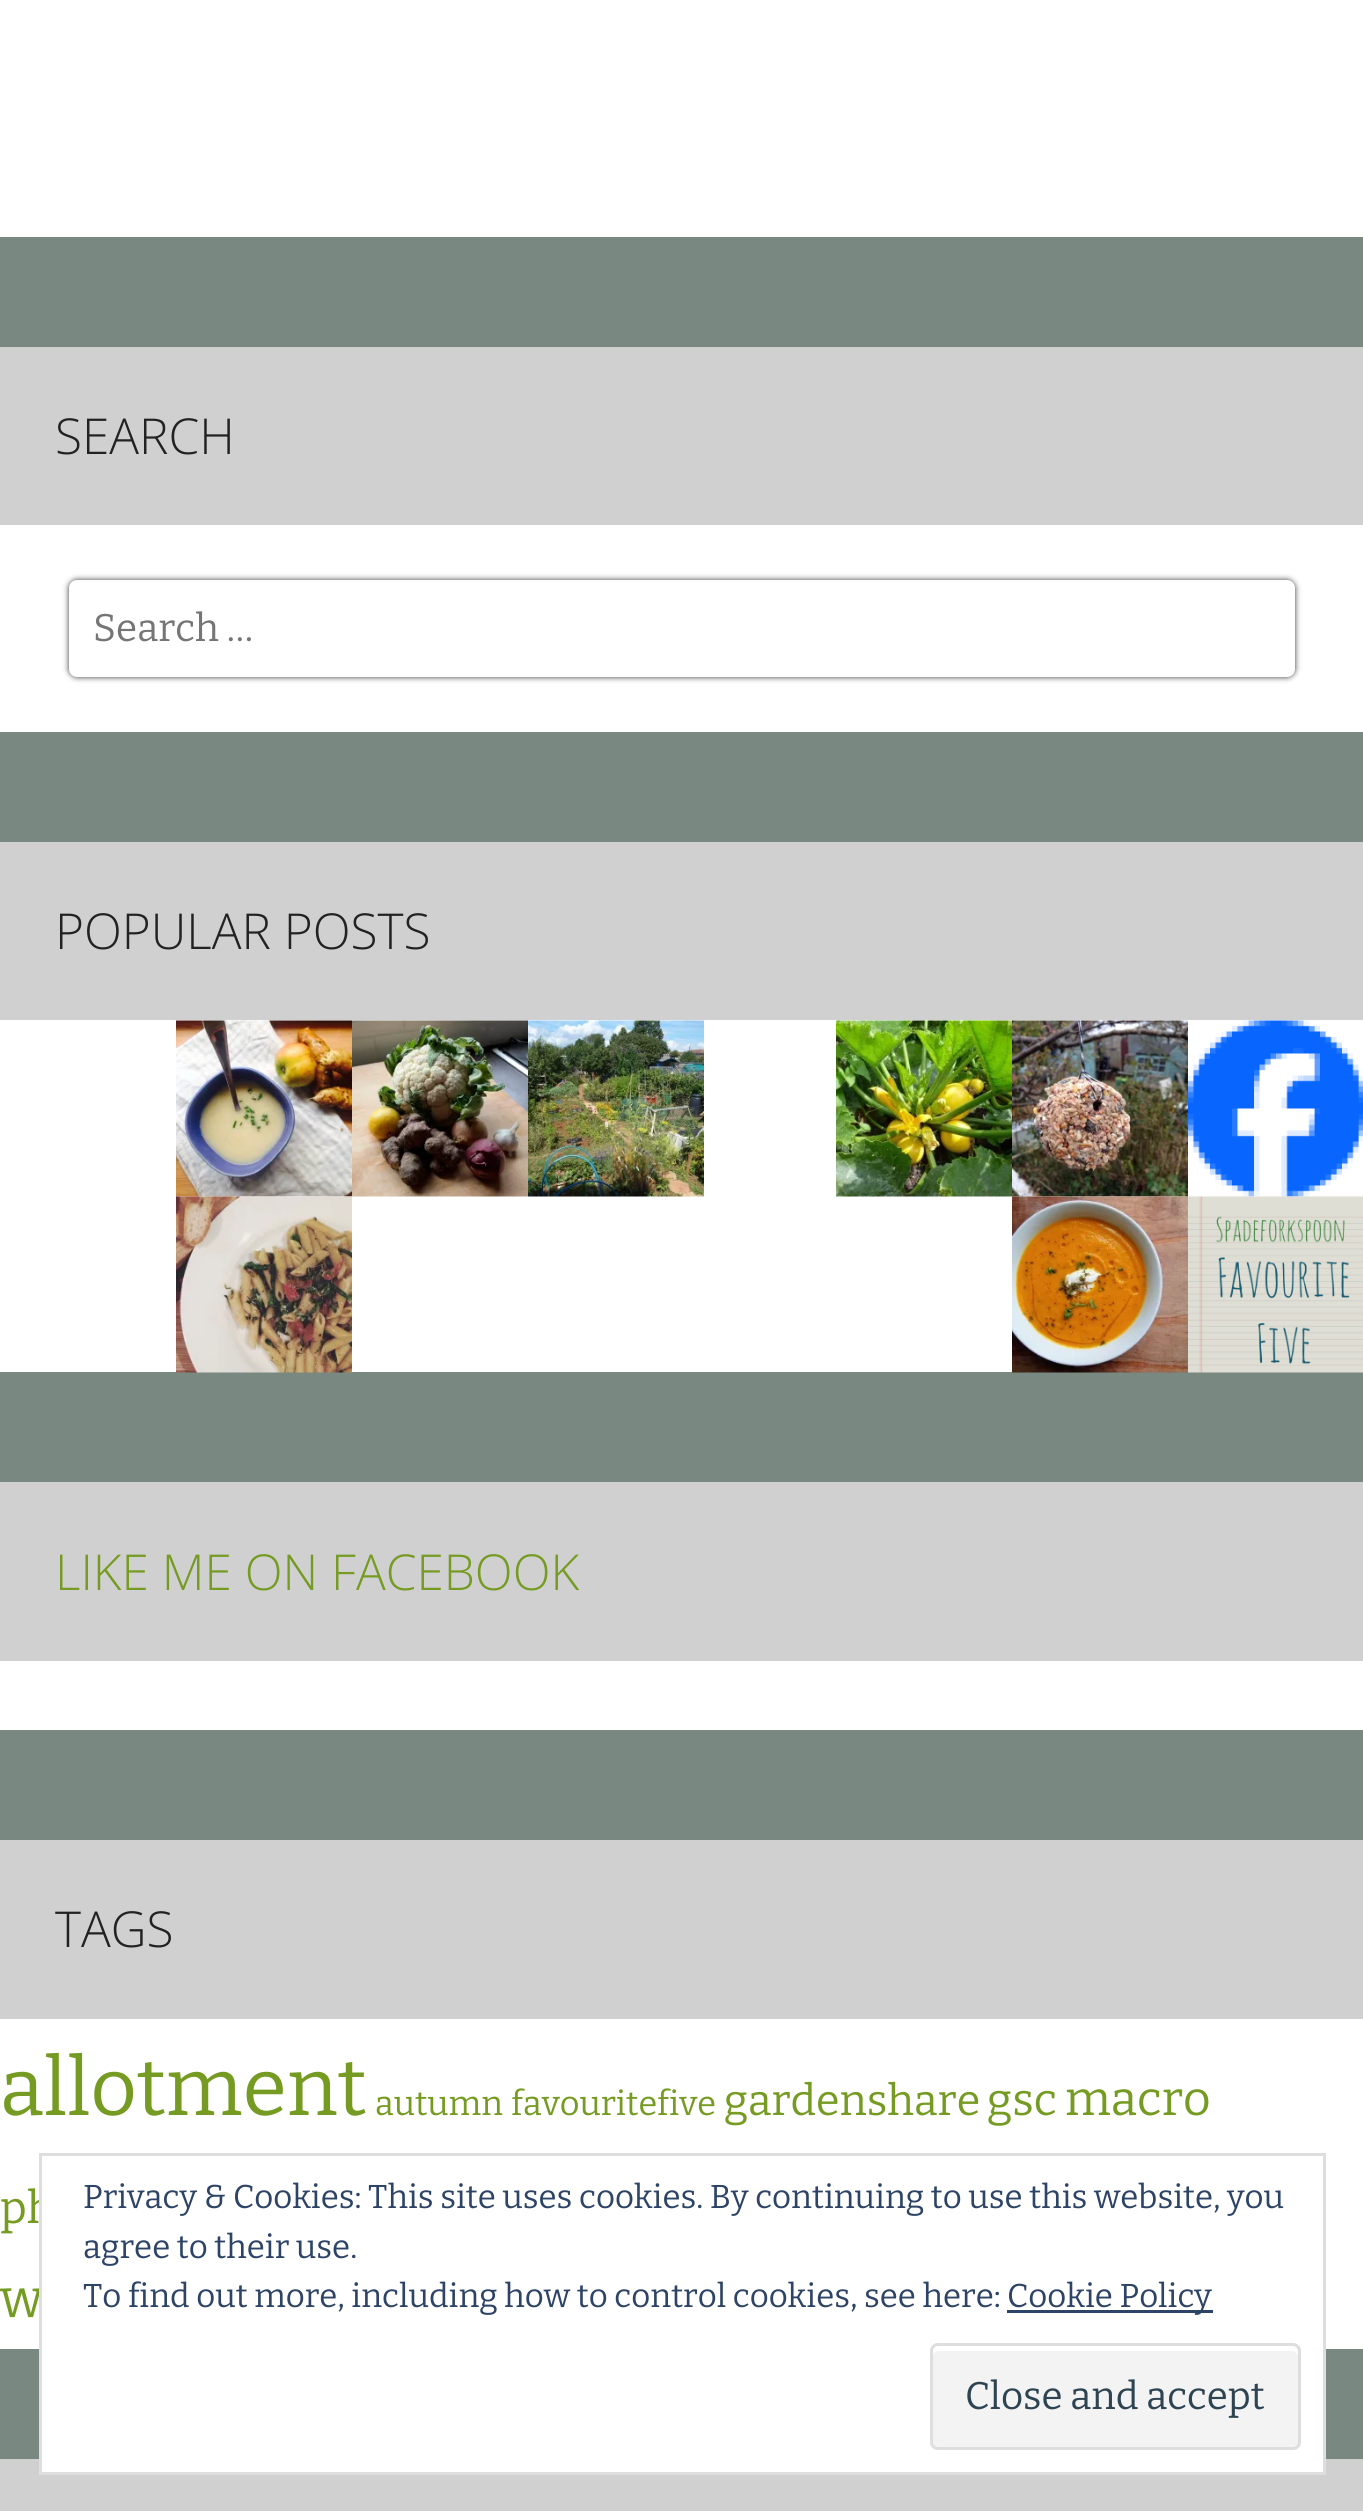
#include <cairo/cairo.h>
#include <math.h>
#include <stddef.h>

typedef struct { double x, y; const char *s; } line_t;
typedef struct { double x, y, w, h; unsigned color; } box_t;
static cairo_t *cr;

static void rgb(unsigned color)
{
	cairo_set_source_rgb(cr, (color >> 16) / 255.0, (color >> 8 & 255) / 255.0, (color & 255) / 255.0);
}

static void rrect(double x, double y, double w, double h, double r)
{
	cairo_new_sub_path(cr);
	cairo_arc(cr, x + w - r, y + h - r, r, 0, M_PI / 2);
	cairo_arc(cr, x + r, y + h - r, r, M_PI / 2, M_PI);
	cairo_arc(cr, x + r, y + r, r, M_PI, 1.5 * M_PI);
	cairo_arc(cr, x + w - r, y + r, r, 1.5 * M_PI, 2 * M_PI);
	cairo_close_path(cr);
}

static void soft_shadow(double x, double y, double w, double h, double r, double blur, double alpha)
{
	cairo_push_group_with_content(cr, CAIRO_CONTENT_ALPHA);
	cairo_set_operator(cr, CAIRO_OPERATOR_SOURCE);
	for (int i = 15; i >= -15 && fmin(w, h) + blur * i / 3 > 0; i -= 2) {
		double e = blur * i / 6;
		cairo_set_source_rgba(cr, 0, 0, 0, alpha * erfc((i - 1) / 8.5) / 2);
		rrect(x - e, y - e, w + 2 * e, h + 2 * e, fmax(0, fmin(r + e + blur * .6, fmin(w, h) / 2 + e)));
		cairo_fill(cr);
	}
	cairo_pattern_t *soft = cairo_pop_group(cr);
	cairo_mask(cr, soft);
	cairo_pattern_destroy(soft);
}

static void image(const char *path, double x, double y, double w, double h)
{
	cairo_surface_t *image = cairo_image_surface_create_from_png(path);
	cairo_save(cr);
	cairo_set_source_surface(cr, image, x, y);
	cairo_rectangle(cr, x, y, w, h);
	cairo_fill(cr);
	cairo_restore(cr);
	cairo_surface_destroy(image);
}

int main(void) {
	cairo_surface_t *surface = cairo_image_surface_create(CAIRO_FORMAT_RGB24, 1363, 2511);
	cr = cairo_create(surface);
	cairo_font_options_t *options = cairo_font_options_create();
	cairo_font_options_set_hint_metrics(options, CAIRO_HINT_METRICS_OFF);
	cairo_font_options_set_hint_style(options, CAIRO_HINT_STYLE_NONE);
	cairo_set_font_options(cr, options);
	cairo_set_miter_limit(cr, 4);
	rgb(0x798981);
	cairo_paint(cr);
	{
		static const box_t items[] = {
			{0, 0, 1363, 237, 0xffffff},
			{0, 525, 1363, 207, 0xffffff},
			{0, 347, 1363, 178, 0xd0d0d0},
		};
		for (size_t i = 0; i < sizeof items / sizeof *items; i++) {
			rgb(items[i].color);
			cairo_rectangle(cr, items[i].x, items[i].y, items[i].w, items[i].h);
			cairo_fill(cr);
		}
	}
	rgb(0x333333);
	soft_shadow(69, 580, 1226, 97, 8, 3, 1);
	rgb(0xffffff);
	rrect(69, 580, 1226, 97, 8);
	cairo_fill(cr);
	cairo_rectangle(cr, 0, 1020, 1363, 352);
	cairo_fill(cr);
	rgb(0xd0d0d0);
	cairo_rectangle(cr, 0, 842, 1363, 178);
	cairo_fill(cr);
	image("img/1.png", 176, 1020, 176, 177);
	image("img/2.png", 352, 1020, 176, 177);
	image("img/3.png", 528, 1020, 176, 177);
	image("img/4.png", 836, 1020, 176, 177);
	image("img/5.png", 1012, 1020, 176, 177);
	image("img/6.png", 1188, 1020, 175, 177);
	image("img/7.png", 176, 1196, 176, 177);
	image("img/8.png", 1012, 1196, 176, 177);
	image("img/9.png", 1188, 1196, 175, 177);
	{
		static const box_t items[] = {
			{0, 1661, 1363, 69, 0xffffff},
			{0, 1482, 1363, 179, 0xd0d0d0},
			{0, 2019, 1363, 330, 0xffffff},
			{0, 1840, 1363, 179, 0xd0d0d0},
			{0, 2459, 1363, 52, 0xd0d0d0},
		};
		for (size_t i = 0; i < sizeof items / sizeof *items; i++) {
			rgb(items[i].color);
			cairo_rectangle(cr, items[i].x, items[i].y, items[i].w, items[i].h);
			cairo_fill(cr);
		}
	}
	cairo_select_font_face(cr, "Open Sans Light", CAIRO_FONT_SLANT_NORMAL, CAIRO_FONT_WEIGHT_NORMAL);
	cairo_set_font_size(cr, 49.5);
	rgb(0x222222);
	cairo_move_to(cr, 55, 454);
	cairo_show_text(cr, "SEARCH");
	cairo_select_font_face(cr, "Bitter", CAIRO_FONT_SLANT_NORMAL, CAIRO_FONT_WEIGHT_NORMAL);
	cairo_set_font_size(cr, 38.5);
	rgb(0x757575);
	cairo_move_to(cr, 93, 641);
	cairo_show_text(cr, "Search …");
	cairo_select_font_face(cr, "Open Sans Light", CAIRO_FONT_SLANT_NORMAL, CAIRO_FONT_WEIGHT_NORMAL);
	cairo_set_font_size(cr, 49.5);
	rgb(0x222222);
	cairo_move_to(cr, 55, 949);
	cairo_show_text(cr, "POPULAR POSTS");
	rgb(0x759b22);
	cairo_move_to(cr, 55, 1590);
	cairo_show_text(cr, "LIKE ME ON FACEBOOK");
	rgb(0x222222);
	cairo_move_to(cr, 55, 1947);
	cairo_show_text(cr, "TAGS");
	cairo_select_font_face(cr, "Bitter", CAIRO_FONT_SLANT_NORMAL, CAIRO_FONT_WEIGHT_NORMAL);
	cairo_set_font_size(cr, 80.5);
	rgb(0x759b22);
	cairo_move_to(cr, 0, 2115);
	cairo_show_text(cr, "allotment");
	cairo_set_font_size(cr, 34.25);
	cairo_move_to(cr, 375, 2115);
	cairo_show_text(cr, "autumn");
	cairo_move_to(cr, 511, 2115);
	cairo_show_text(cr, "favouritefive");
	cairo_set_font_size(cr, 43);
	cairo_move_to(cr, 724, 2115);
	cairo_show_text(cr, "gardenshare");
	cairo_set_font_size(cr, 45);
	cairo_move_to(cr, 987, 2115);
	cairo_show_text(cr, "gsc");
	cairo_set_font_size(cr, 48);
	cairo_move_to(cr, 1065, 2115);
	cairo_show_text(cr, "macro");
	cairo_set_font_size(cr, 45);
	cairo_move_to(cr, 0, 2223);
	cairo_show_text(cr, "ph");
	cairo_set_font_size(cr, 54);
	cairo_move_to(cr, 0, 2317);
	cairo_show_text(cr, "w");
	rgb(0xffffff);
	cairo_rectangle(cr, 42, 2198, 1281, 274);
	cairo_fill(cr);
	cairo_rectangle(cr, 40.5, 2154.5, 1284, 319);
	rgb(0xdedede);
	cairo_set_line_width(cr, 3);
	cairo_stroke(cr);
	cairo_set_font_size(cr, 33);
	rgb(0x2e4467);
	{
		static const line_t items[] = {
			{83, 2208, "Privacy & Cookies: This site uses cookies. By continuing to use this website, you"},
			{83, 2258, "agree to their use."},
			{83, 2307, "To find out more, including how to control cookies, see here:"},
		};
		for (size_t i = 0; i < sizeof items / sizeof *items; i++) {
			cairo_move_to(cr, items[i].x, items[i].y);
			cairo_show_text(cr, items[i].s);
		}
	}
	cairo_rectangle(cr, 1007, 2310, 206, 3);
	cairo_fill(cr);
	cairo_move_to(cr, 1007, 2307);
	cairo_show_text(cr, "Cookie Policy");
	rgb(0xf3f3f3);
	rrect(930, 2343, 371, 107, 8);
	cairo_fill(cr);
	rgb(0xffffff);
	cairo_new_path(cr);
	cairo_move_to(cr, 938, 2351);
	cairo_line_to(cr, 1292, 2351);
	cairo_curve_to(cr, 1296, 2351, 1298, 2354, 1298, 2357);
	cairo_line_to(cr, 1298, 2352);
	cairo_curve_to(cr, 1298, 2349, 1295, 2346, 1292, 2346);
	cairo_line_to(cr, 938, 2346);
	cairo_curve_to(cr, 935, 2346, 932, 2349, 932, 2352);
	cairo_line_to(cr, 932, 2357);
	cairo_curve_to(cr, 932, 2354, 935, 2351, 938, 2351);
	cairo_close_path(cr);
	cairo_fill(cr);
	rrect(931.5, 2344.5, 368, 104, 6.5);
	rgb(0xdedede);
	cairo_stroke(cr);
	cairo_set_font_size(cr, 38.5);
	rgb(0x2e4453);
	cairo_move_to(cr, 965, 2409);
	cairo_show_text(cr, "Close and accept");
	cairo_surface_write_to_png(surface, "page.png");
	cairo_font_options_destroy(options);
	cairo_destroy(cr);
	cairo_surface_destroy(surface);
	return 0;
}
